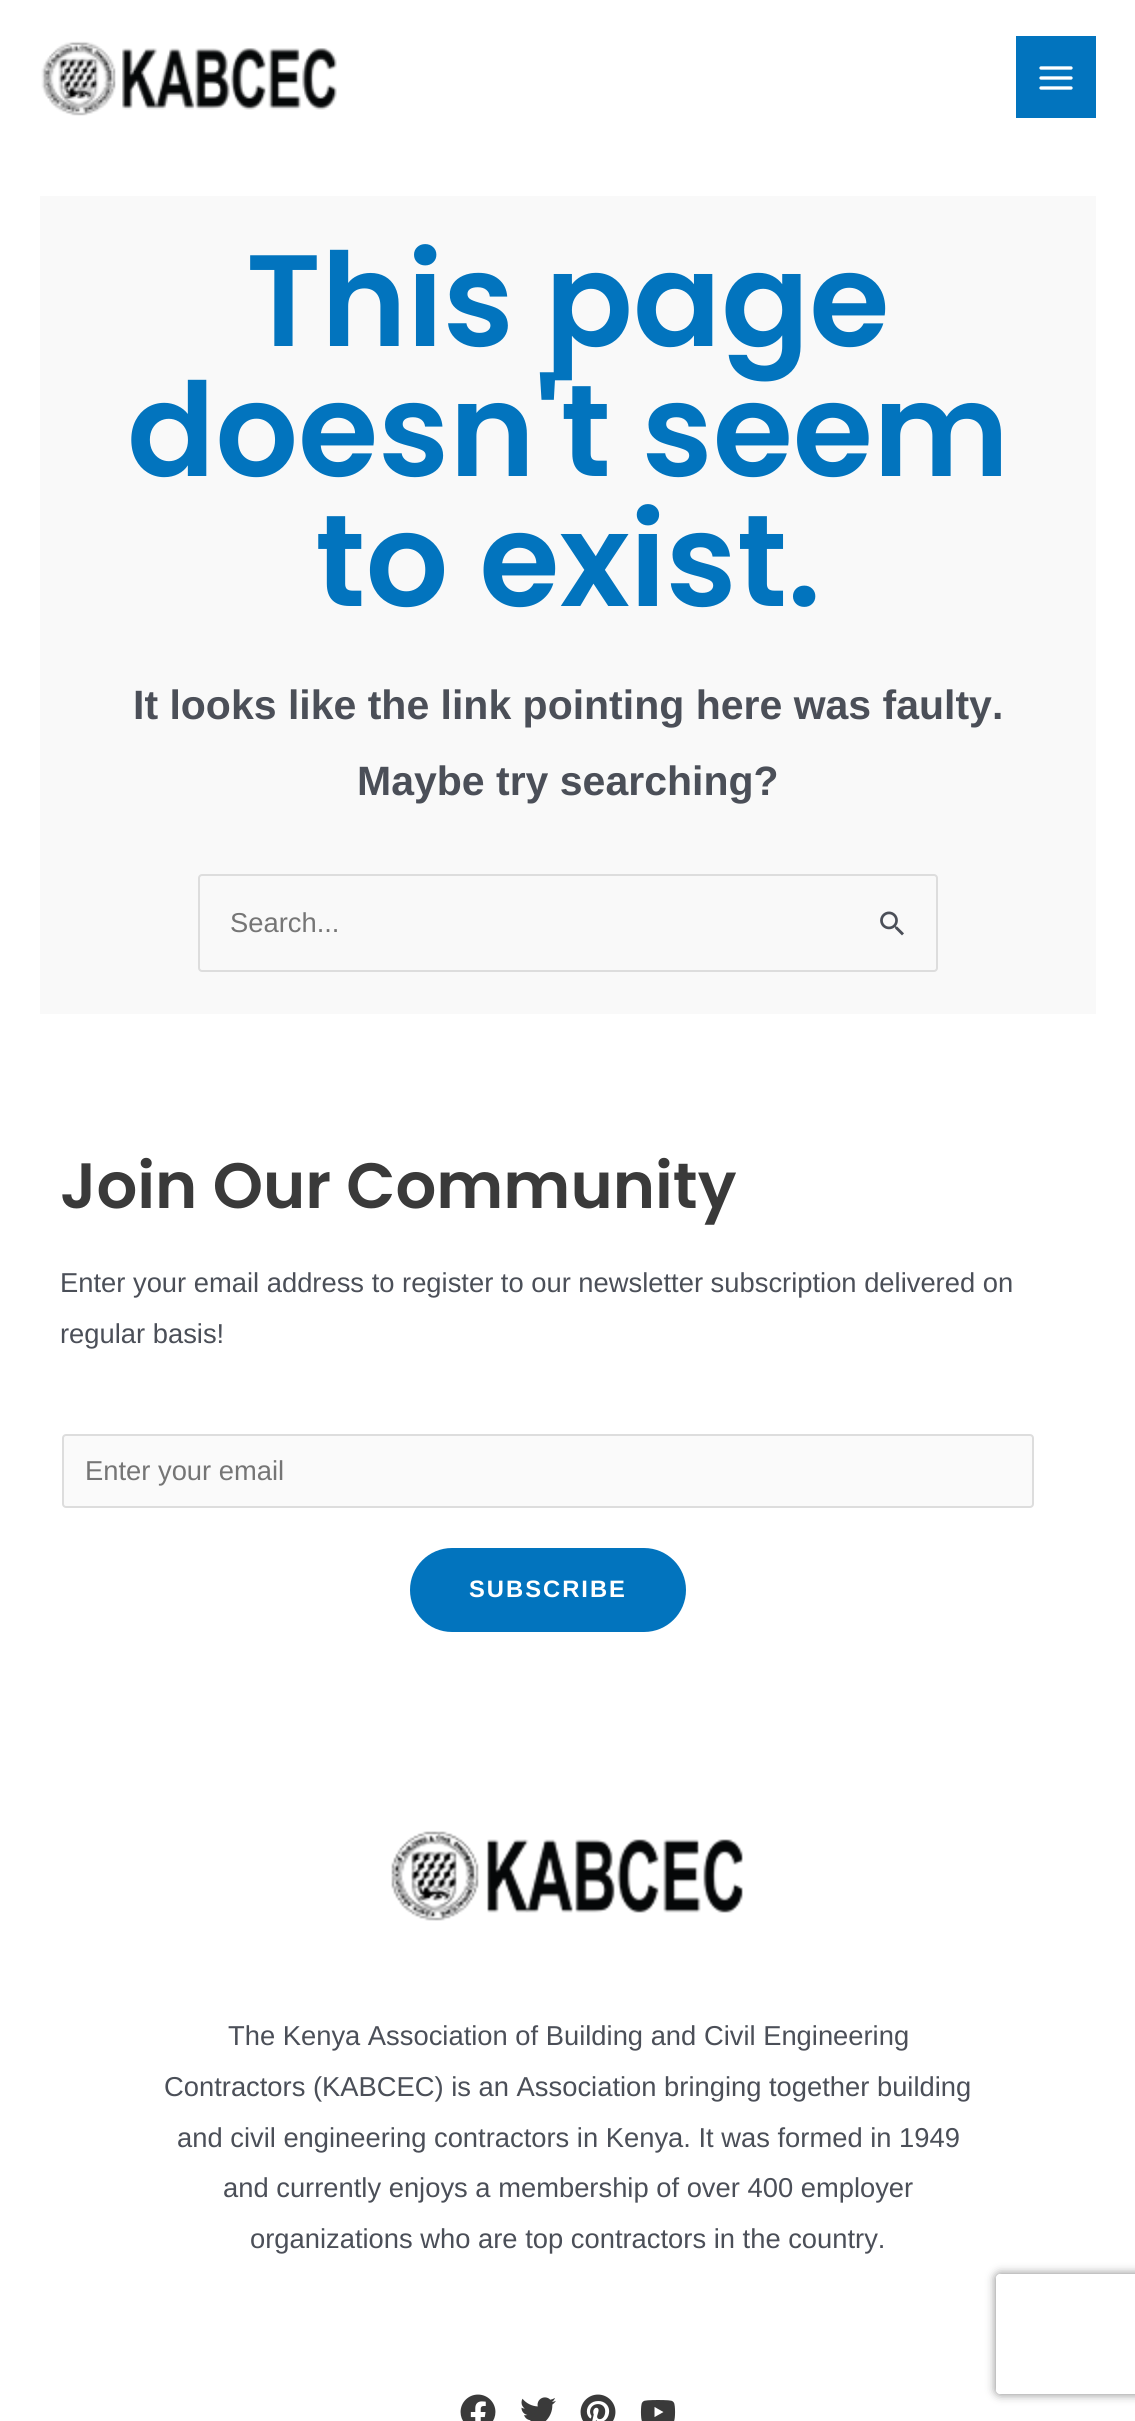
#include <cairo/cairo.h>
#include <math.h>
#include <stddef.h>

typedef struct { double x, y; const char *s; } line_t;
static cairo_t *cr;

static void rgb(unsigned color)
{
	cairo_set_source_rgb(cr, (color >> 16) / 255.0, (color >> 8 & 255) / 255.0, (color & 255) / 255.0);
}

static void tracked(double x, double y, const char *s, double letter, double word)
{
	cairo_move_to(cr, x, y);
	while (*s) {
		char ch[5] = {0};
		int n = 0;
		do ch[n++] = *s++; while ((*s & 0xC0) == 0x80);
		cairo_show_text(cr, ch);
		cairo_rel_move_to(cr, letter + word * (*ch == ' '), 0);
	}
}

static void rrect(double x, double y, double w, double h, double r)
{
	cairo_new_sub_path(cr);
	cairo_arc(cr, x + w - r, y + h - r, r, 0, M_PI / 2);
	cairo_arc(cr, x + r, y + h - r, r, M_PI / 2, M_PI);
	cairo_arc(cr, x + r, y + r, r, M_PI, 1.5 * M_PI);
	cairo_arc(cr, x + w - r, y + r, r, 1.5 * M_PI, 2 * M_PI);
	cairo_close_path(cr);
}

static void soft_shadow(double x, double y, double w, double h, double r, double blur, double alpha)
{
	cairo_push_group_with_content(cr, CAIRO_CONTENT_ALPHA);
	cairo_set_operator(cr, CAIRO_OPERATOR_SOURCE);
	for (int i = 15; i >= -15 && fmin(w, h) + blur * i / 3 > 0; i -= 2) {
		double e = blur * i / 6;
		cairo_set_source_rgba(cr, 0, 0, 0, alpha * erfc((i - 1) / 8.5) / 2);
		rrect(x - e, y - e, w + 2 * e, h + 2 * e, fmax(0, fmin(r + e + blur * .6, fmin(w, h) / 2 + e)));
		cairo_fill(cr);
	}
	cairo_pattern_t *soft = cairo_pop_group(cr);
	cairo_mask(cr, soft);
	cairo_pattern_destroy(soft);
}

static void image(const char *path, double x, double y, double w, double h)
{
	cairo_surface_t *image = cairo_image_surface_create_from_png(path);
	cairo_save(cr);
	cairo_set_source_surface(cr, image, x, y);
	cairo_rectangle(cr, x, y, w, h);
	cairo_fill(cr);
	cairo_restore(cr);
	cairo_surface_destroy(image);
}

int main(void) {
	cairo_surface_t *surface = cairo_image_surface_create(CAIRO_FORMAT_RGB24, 1135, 2421);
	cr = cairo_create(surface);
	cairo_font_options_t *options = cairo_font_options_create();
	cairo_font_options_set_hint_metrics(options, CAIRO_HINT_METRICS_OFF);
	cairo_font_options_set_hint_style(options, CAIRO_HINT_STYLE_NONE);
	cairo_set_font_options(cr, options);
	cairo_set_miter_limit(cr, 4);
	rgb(0xffffff);
	cairo_paint(cr);
	image("img/1.png", 41, 41, 296, 75);
	rgb(0x0274be);
	cairo_rectangle(cr, 1016, 36, 80, 82);
	cairo_fill(cr);
	image("img/2.png", 1039, 66, 34, 24);
	rgb(0xf9f9f9);
	cairo_rectangle(cr, 40, 196, 1056, 818);
	cairo_fill(cr);
	rrect(199, 875, 738, 96, 3);
	rgb(0xdddddd);
	cairo_stroke(cr);
	image("img/3.png", 880, 911, 24, 25);
	rgb(0xfafafa);
	rrect(63, 1435, 970, 72, 3);
	cairo_fill_preserve(cr);
	rgb(0xdddddd);
	cairo_stroke(cr);
	rgb(0x0274be);
	rrect(410, 1548, 276, 84, 42);
	cairo_fill(cr);
	image("img/4.png", 391, 1831, 352, 90);
	image("img/5.png", 460, 2394, 36, 27);
	image("img/6.png", 521, 2397, 35, 24);
	image("img/7.png", 580, 2394, 36, 27);
	image("img/8.png", 640, 2400, 36, 21);
	cairo_save(cr);
	cairo_set_fill_rule(cr, CAIRO_FILL_RULE_EVEN_ODD);
	cairo_new_path(cr);
	cairo_move_to(cr, 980, 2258);
	cairo_line_to(cr, 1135, 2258);
	cairo_line_to(cr, 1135, 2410);
	cairo_line_to(cr, 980, 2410);
	cairo_close_path(cr);
	cairo_move_to(cr, 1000, 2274);
	cairo_line_to(cr, 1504, 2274);
	cairo_curve_to(cr, 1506, 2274, 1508, 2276, 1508, 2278);
	cairo_line_to(cr, 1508, 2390);
	cairo_curve_to(cr, 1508, 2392, 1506, 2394, 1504, 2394);
	cairo_line_to(cr, 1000, 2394);
	cairo_curve_to(cr, 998, 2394, 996, 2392, 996, 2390);
	cairo_line_to(cr, 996, 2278);
	cairo_curve_to(cr, 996, 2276, 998, 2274, 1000, 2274);
	cairo_close_path(cr);
	cairo_clip(cr);
	rgb(0x808080);
	soft_shadow(996, 2274, 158, 120, 4, 5, 1);
	cairo_restore(cr);
	cairo_select_font_face(cr, "Poppins SemiBold", CAIRO_FONT_SLANT_NORMAL, CAIRO_FONT_WEIGHT_NORMAL);
	cairo_set_font_size(cr, 130);
	{
		static const line_t items[] = {
			{246, 346, "This page"},
			{127, 476, "doesn't seem"},
			{315, 606, "to exist."},
		};
		for (size_t i = 0; i < sizeof items / sizeof *items; i++) {
			cairo_move_to(cr, items[i].x, items[i].y);
			cairo_show_text(cr, items[i].s);
		}
	}
	cairo_select_font_face(cr, "Liberation Sans", CAIRO_FONT_SLANT_NORMAL, CAIRO_FONT_WEIGHT_BOLD);
	cairo_set_font_size(cr, 41);
	rgb(0x4b4f58);
	cairo_move_to(cr, 133, 719);
	cairo_show_text(cr, "It looks like the link pointing here was faulty.");
	cairo_move_to(cr, 357, 795);
	cairo_show_text(cr, "Maybe try searching?");
	cairo_select_font_face(cr, "Liberation Sans", CAIRO_FONT_SLANT_NORMAL, CAIRO_FONT_WEIGHT_NORMAL);
	cairo_set_font_size(cr, 27.35);
	rgb(0x757575);
	cairo_move_to(cr, 230, 932);
	cairo_show_text(cr, "Search...");
	cairo_select_font_face(cr, "Poppins SemiBold", CAIRO_FONT_SLANT_NORMAL, CAIRO_FONT_WEIGHT_NORMAL);
	cairo_set_font_size(cr, 64);
	rgb(0x3a3a3a);
	cairo_move_to(cr, 60, 1208);
	cairo_show_text(cr, "Join Our Community");
	cairo_select_font_face(cr, "Liberation Sans", CAIRO_FONT_SLANT_NORMAL, CAIRO_FONT_WEIGHT_NORMAL);
	cairo_set_font_size(cr, 27.35);
	rgb(0x4b4f58);
	cairo_move_to(cr, 60, 1292);
	cairo_show_text(cr, "Enter your email address to register to our newsletter subscription delivered on");
	cairo_move_to(cr, 60, 1343);
	cairo_show_text(cr, "regular basis!");
	rgb(0x757575);
	cairo_move_to(cr, 85, 1480);
	cairo_show_text(cr, "Enter your email");
	cairo_select_font_face(cr, "Liberation Sans", CAIRO_FONT_SLANT_NORMAL, CAIRO_FONT_WEIGHT_BOLD);
	cairo_set_font_size(cr, 23.75);
	rgb(0xffffff);
	tracked(469, 1597, "SUBSCRIBE", 2, 0);
	cairo_select_font_face(cr, "Liberation Sans", CAIRO_FONT_SLANT_NORMAL, CAIRO_FONT_WEIGHT_NORMAL);
	cairo_set_font_size(cr, 27.35);
	rgb(0x4b4f58);
	{
		static const line_t items[] = {
			{228, 2045, "The Kenya Association of Building and Civil Engineering"},
			{164, 2096, "Contractors (KABCEC) is an Association bringing together building"},
			{177, 2147, "and civil engineering contractors in Kenya. It was formed in 1949"},
			{223, 2197, "and currently enjoys a membership of over 400 employer"},
			{250, 2248, "organizations who are top contractors in the country."},
		};
		for (size_t i = 0; i < sizeof items / sizeof *items; i++) {
			cairo_move_to(cr, items[i].x, items[i].y);
			cairo_show_text(cr, items[i].s);
		}
	}
	cairo_surface_write_to_png(surface, "page.png");
	cairo_font_options_destroy(options);
	cairo_destroy(cr);
	cairo_surface_destroy(surface);
	return 0;
}
